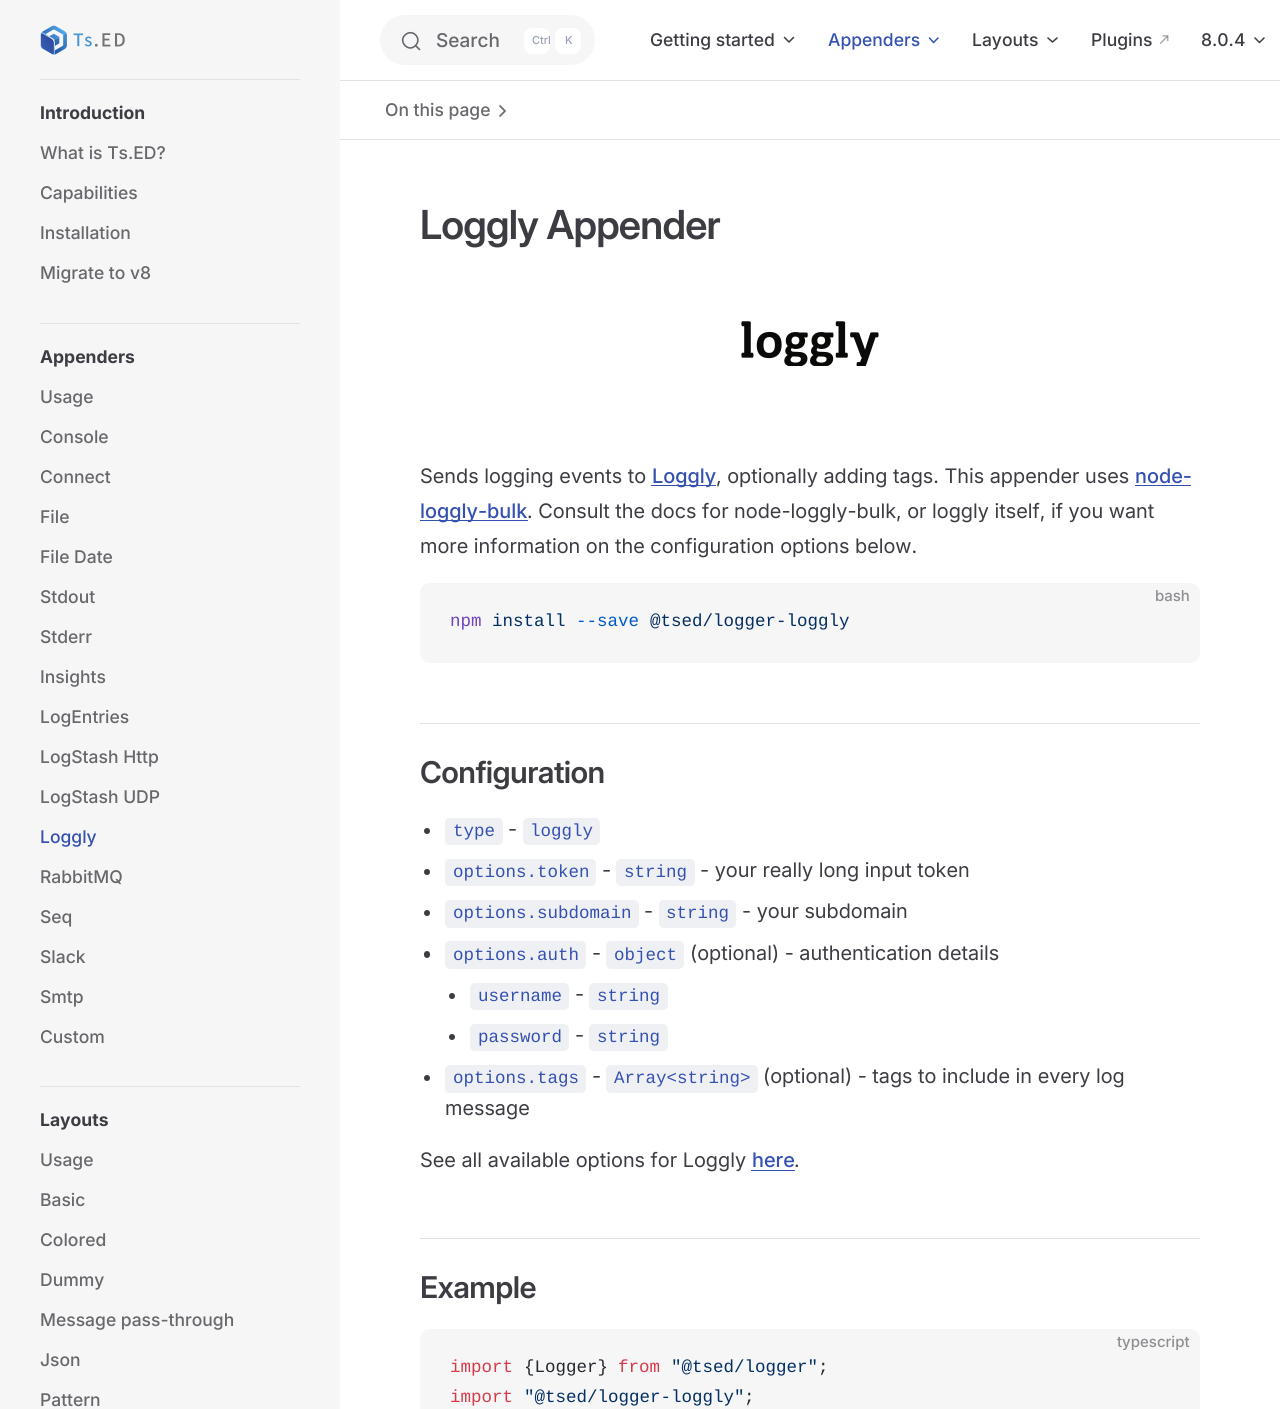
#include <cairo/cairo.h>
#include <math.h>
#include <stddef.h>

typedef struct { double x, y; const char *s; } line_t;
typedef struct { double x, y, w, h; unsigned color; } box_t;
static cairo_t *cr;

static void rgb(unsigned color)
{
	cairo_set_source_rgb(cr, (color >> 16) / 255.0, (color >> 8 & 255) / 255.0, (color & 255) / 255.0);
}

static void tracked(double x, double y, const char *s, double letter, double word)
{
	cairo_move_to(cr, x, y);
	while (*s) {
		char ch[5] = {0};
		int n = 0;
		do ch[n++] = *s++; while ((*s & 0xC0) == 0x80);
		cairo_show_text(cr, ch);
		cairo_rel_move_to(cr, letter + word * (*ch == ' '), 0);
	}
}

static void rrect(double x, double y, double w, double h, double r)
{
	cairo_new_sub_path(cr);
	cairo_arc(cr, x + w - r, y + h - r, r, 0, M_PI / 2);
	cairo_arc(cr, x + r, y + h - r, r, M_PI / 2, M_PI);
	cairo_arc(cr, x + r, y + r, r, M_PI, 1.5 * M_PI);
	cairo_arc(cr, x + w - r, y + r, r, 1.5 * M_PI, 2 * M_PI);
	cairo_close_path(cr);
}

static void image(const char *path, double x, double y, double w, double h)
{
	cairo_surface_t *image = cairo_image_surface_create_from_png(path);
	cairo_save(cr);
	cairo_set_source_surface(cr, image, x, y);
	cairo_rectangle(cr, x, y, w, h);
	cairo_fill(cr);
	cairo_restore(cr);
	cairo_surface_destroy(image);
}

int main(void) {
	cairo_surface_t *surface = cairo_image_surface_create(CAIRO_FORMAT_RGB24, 1280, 1409);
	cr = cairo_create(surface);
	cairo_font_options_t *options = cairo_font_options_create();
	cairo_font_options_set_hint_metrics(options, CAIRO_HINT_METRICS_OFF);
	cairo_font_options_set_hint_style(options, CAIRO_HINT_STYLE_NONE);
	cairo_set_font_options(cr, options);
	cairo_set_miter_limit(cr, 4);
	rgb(0xffffff);
	cairo_paint(cr);
	rgb(0xf6f6f7);
	cairo_rectangle(cr, 0, 0, 340, 1409);
	cairo_fill(cr);
	rgb(0xe2e2e3);
	cairo_rectangle(cr, 40, 79, 260, 1);
	cairo_fill(cr);
	image("img/1.png", 40, 25, 85, 30);
	rgb(0xf6f6f7);
	rrect(380, 15, 215, 50, 25);
	cairo_fill(cr);
	cairo_new_path(cr);
	cairo_move_to(cr, 415.5, 45.5);
	cairo_line_to(cr, 419.5, 49.5);
	cairo_line_to(cr, 415.5, 45.5);
	cairo_curve_to(cr, 408.5, 53, 398, 41.5, 405, 35);
	cairo_curve_to(cr, 412.5, 28, 422.5, 38.5, 415.5, 45.5);
	cairo_close_path(cr);
	rgb(0x65656b);
	cairo_set_line_width(cr, 1.6);
	cairo_set_line_cap(cr, CAIRO_LINE_CAP_ROUND);
	cairo_set_line_join(cr, CAIRO_LINE_JOIN_ROUND);
	cairo_stroke(cr);
	rgb(0xffffff);
	rrect(524, 28, 26, 26, 8);
	cairo_fill(cr);
	rrect(555, 28, 26, 26, 8);
	cairo_fill(cr);
	cairo_new_path(cr);
	cairo_move_to(cr, 784.5, 37.5);
	cairo_line_to(cr, 789, 42);
	cairo_line_to(cr, 793.5, 37.5);
	rgb(0x3c3c43);
	cairo_set_line_width(cr, 1.5);
	cairo_stroke(cr);
	cairo_new_path(cr);
	cairo_move_to(cr, 929.5, 38);
	cairo_line_to(cr, 933.5, 42.5);
	cairo_line_to(cr, 938, 38);
	rgb(0x3451b2);
	cairo_stroke(cr);
	cairo_new_path(cr);
	cairo_move_to(cr, 1048, 38);
	cairo_line_to(cr, 1052.5, 42);
	cairo_line_to(cr, 1057, 38);
	rgb(0x3c3c43);
	cairo_stroke(cr);
	image("img/2.png", 1159, 35, 10, 9);
	cairo_new_path(cr);
	cairo_move_to(cr, 1255, 38);
	cairo_line_to(cr, 1259.5, 42.5);
	cairo_line_to(cr, 1264, 38);
	cairo_stroke(cr);
	{
		static const box_t items[] = {
			{340, 80, 940, 1, 0xe2e2e3},
			{40, 323, 260, 1, 0xe2e2e3},
			{40, 1086, 260, 1, 0xe2e2e3},
			{340, 139, 940, 1, 0xe2e2e3},
		};
		for (size_t i = 0; i < sizeof items / sizeof *items; i++) {
			rgb(items[i].color);
			cairo_rectangle(cr, items[i].x, items[i].y, items[i].w, items[i].h);
			cairo_fill(cr);
		}
	}
	cairo_new_path(cr);
	cairo_move_to(cr, 500, 116);
	cairo_line_to(cr, 505, 111);
	cairo_line_to(cr, 500, 106);
	rgb(0x67676c);
	cairo_set_line_width(cr, 1.7);
	cairo_stroke(cr);
	image("img/3.png", 741, 321, 138, 45);
	{
		static const box_t items[] = {
			{651, 485, 65, 1, 0x3451b2},
			{1135, 485, 56, 1, 0x3451b2},
			{420, 520, 108, 1, 0x3451b2},
		};
		for (size_t i = 0; i < sizeof items / sizeof *items; i++) {
			rgb(items[i].color);
			cairo_rectangle(cr, items[i].x, items[i].y, items[i].w, items[i].h);
			cairo_fill(cr);
		}
	}
	rgb(0xf6f6f7);
	rrect(420, 583, 780, 80, 10);
	cairo_fill(cr);
	rgb(0xe2e2e3);
	cairo_rectangle(cr, 420, 723, 780, 1);
	cairo_fill(cr);
	rgb(0x3c3c43);
	cairo_arc(cr, 427, 831, 3, 0, 2 * M_PI);
	cairo_fill(cr);
	rgb(0xeff0f3);
	rrect(445, 818, 58, 27, 5);
	cairo_fill(cr);
	rrect(523, 818, 77, 27, 5);
	cairo_fill(cr);
	rgb(0x3c3c43);
	cairo_arc(cr, 427, 872, 3, 0, 2 * M_PI);
	cairo_fill(cr);
	rgb(0xeff0f3);
	rrect(445, 859, 151, 27, 5);
	cairo_fill(cr);
	rrect(616, 859, 79, 27, 5);
	cairo_fill(cr);
	rgb(0x3c3c43);
	cairo_arc(cr, 427, 913, 3, 0, 2 * M_PI);
	cairo_fill(cr);
	rgb(0xeff0f3);
	rrect(445, 900, 194, 28, 5);
	cairo_fill(cr);
	rrect(659, 900, 77, 28, 5);
	cairo_fill(cr);
	rgb(0x3c3c43);
	rrect(424, 951, 6, 7, 3);
	cairo_fill(cr);
	rgb(0xeff0f3);
	rrect(445, 941, 141, 28, 5);
	cairo_fill(cr);
	rrect(606, 941, 78, 28, 5);
	cairo_fill(cr);
	rgb(0x3c3c43);
	cairo_arc(cr, 452, 996, 3, 0, 2 * M_PI);
	cairo_fill(cr);
	rgb(0xeff0f3);
	rrect(470, 983, 99, 27, 5);
	cairo_fill(cr);
	rrect(589, 983, 79, 27, 5);
	cairo_fill(cr);
	rgb(0x3c3c43);
	cairo_arc(cr, 452, 1037, 3, 0, 2 * M_PI);
	cairo_fill(cr);
	rgb(0xeff0f3);
	rrect(470, 1024, 99, 27, 5);
	cairo_fill(cr);
	rrect(589, 1024, 79, 27, 5);
	cairo_fill(cr);
	rgb(0x3c3c43);
	cairo_arc(cr, 427, 1078, 3, 0, 2 * M_PI);
	cairo_fill(cr);
	rgb(0xeff0f3);
	rrect(445, 1065, 141, 28, 5);
	cairo_fill(cr);
	rrect(606, 1065, 152, 28, 5);
	cairo_fill(cr);
	rgb(0x3451b2);
	cairo_rectangle(cr, 751, 1170, 44, 1);
	cairo_fill(cr);
	rgb(0xe2e2e3);
	cairo_rectangle(cr, 420, 1238, 780, 1);
	cairo_fill(cr);
	rgb(0xf6f6f7);
	rrect(420, 1329, 780, 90, 10);
	cairo_fill(cr);
	cairo_select_font_face(cr, "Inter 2 Medium", CAIRO_FONT_SLANT_NORMAL, CAIRO_FONT_WEIGHT_NORMAL);
	cairo_set_font_size(cr, 19);
	rgb(0x67676c);
	cairo_move_to(cr, 436, 47);
	cairo_show_text(cr, "Search");
	cairo_set_font_size(cr, 11);
	rgb(0x99a1b3);
	cairo_move_to(cr, 532, 44);
	cairo_show_text(cr, "Ctrl");
	cairo_move_to(cr, 565, 44);
	cairo_show_text(cr, "K");
	cairo_set_font_size(cr, 17.5);
	rgb(0x3c3c43);
	cairo_move_to(cr, 650, 46);
	cairo_show_text(cr, "Getting started");
	rgb(0x3451b2);
	cairo_move_to(cr, 828, 46);
	cairo_show_text(cr, "Appenders");
	rgb(0x3c3c43);
	{
		static const line_t items[] = {
			{972, 46, "Layouts"},
			{1091, 46, "Plugins"},
			{1201, 46, "8.0.4"},
		};
		for (size_t i = 0; i < sizeof items / sizeof *items; i++) {
			cairo_move_to(cr, items[i].x, items[i].y);
			cairo_show_text(cr, items[i].s);
		}
	}
	cairo_select_font_face(cr, "Inter", CAIRO_FONT_SLANT_NORMAL, CAIRO_FONT_WEIGHT_BOLD);
	cairo_move_to(cr, 40, 119);
	cairo_show_text(cr, "Introduction");
	cairo_select_font_face(cr, "Inter 2 Medium", CAIRO_FONT_SLANT_NORMAL, CAIRO_FONT_WEIGHT_NORMAL);
	rgb(0x67676c);
	{
		static const line_t items[] = {
			{40, 159, "What is Ts.ED?"},
			{40, 199, "Capabilities"},
			{40, 239, "Installation"},
			{40, 279, "Migrate to v8"},
		};
		for (size_t i = 0; i < sizeof items / sizeof *items; i++) {
			cairo_move_to(cr, items[i].x, items[i].y);
			cairo_show_text(cr, items[i].s);
		}
	}
	cairo_select_font_face(cr, "Inter", CAIRO_FONT_SLANT_NORMAL, CAIRO_FONT_WEIGHT_BOLD);
	rgb(0x3c3c43);
	cairo_move_to(cr, 40, 363);
	cairo_show_text(cr, "Appenders");
	cairo_select_font_face(cr, "Inter 2 Medium", CAIRO_FONT_SLANT_NORMAL, CAIRO_FONT_WEIGHT_NORMAL);
	rgb(0x67676c);
	{
		static const line_t items[] = {
			{40, 403, "Usage"},
			{40, 443, "Console"},
			{40, 483, "Connect"},
			{40, 523, "File"},
			{40, 563, "File Date"},
			{40, 603, "Stdout"},
			{40, 643, "Stderr"},
			{40, 683, "Insights"},
			{40, 723, "LogEntries"},
			{40, 763, "LogStash Http"},
			{40, 803, "LogStash UDP"},
		};
		for (size_t i = 0; i < sizeof items / sizeof *items; i++) {
			cairo_move_to(cr, items[i].x, items[i].y);
			cairo_show_text(cr, items[i].s);
		}
	}
	rgb(0x3451b2);
	cairo_move_to(cr, 40, 843);
	cairo_show_text(cr, "Loggly");
	rgb(0x67676c);
	{
		static const line_t items[] = {
			{40, 883, "RabbitMQ"},
			{40, 923, "Seq"},
			{40, 963, "Slack"},
			{40, 1003, "Smtp"},
			{40, 1043, "Custom"},
		};
		for (size_t i = 0; i < sizeof items / sizeof *items; i++) {
			cairo_move_to(cr, items[i].x, items[i].y);
			cairo_show_text(cr, items[i].s);
		}
	}
	cairo_select_font_face(cr, "Inter", CAIRO_FONT_SLANT_NORMAL, CAIRO_FONT_WEIGHT_BOLD);
	rgb(0x3c3c43);
	cairo_move_to(cr, 40, 1126);
	cairo_show_text(cr, "Layouts");
	cairo_select_font_face(cr, "Inter 2 Medium", CAIRO_FONT_SLANT_NORMAL, CAIRO_FONT_WEIGHT_NORMAL);
	rgb(0x67676c);
	{
		static const line_t items[] = {
			{40, 1166, "Usage"},
			{40, 1206, "Basic"},
			{40, 1246, "Colored"},
			{40, 1286, "Dummy"},
			{40, 1326, "Message pass-through"},
			{40, 1366, "Json"},
			{40, 1406, "Pattern"},
			{385, 116, "On this page"},
		};
		for (size_t i = 0; i < sizeof items / sizeof *items; i++) {
			cairo_move_to(cr, items[i].x, items[i].y);
			cairo_show_text(cr, items[i].s);
		}
	}
	cairo_select_font_face(cr, "Inter SemiBold", CAIRO_FONT_SLANT_NORMAL, CAIRO_FONT_WEIGHT_NORMAL);
	cairo_set_font_size(cr, 40);
	rgb(0x3c3c43);
	tracked(420, 239, "Loggly Appender", -0.75, 0);
	cairo_select_font_face(cr, "Inter", CAIRO_FONT_SLANT_NORMAL, CAIRO_FONT_WEIGHT_NORMAL);
	cairo_set_font_size(cr, 20);
	cairo_move_to(cr, 420, 483);
	cairo_show_text(cr, "Sends logging events to");
	cairo_select_font_face(cr, "Inter Medium", CAIRO_FONT_SLANT_NORMAL, CAIRO_FONT_WEIGHT_NORMAL);
	rgb(0x3451b2);
	cairo_move_to(cr, 652, 483);
	cairo_show_text(cr, "Loggly");
	cairo_select_font_face(cr, "Inter", CAIRO_FONT_SLANT_NORMAL, CAIRO_FONT_WEIGHT_NORMAL);
	rgb(0x3c3c43);
	cairo_move_to(cr, 716, 483);
	cairo_show_text(cr, ", optionally adding tags. This appender uses");
	cairo_select_font_face(cr, "Inter Medium", CAIRO_FONT_SLANT_NORMAL, CAIRO_FONT_WEIGHT_NORMAL);
	rgb(0x3451b2);
	cairo_move_to(cr, 1135, 483);
	cairo_show_text(cr, "node-");
	cairo_move_to(cr, 420, 518);
	cairo_show_text(cr, "loggly-bulk");
	cairo_select_font_face(cr, "Inter", CAIRO_FONT_SLANT_NORMAL, CAIRO_FONT_WEIGHT_NORMAL);
	rgb(0x3c3c43);
	cairo_move_to(cr, 527, 518);
	cairo_show_text(cr, ". Consult the docs for node-loggly-bulk, or loggly itself, if you want");
	cairo_move_to(cr, 420, 553);
	cairo_show_text(cr, "more information on the configuration options below.");
	cairo_select_font_face(cr, "Inter 2 Medium", CAIRO_FONT_SLANT_NORMAL, CAIRO_FONT_WEIGHT_NORMAL);
	cairo_set_font_size(cr, 15);
	rgb(0x8e8e92);
	cairo_move_to(cr, 1155, 601);
	cairo_show_text(cr, "bash");
	cairo_select_font_face(cr, "Liberation Mono", CAIRO_FONT_SLANT_NORMAL, CAIRO_FONT_WEIGHT_NORMAL);
	cairo_set_font_size(cr, 17.5);
	rgb(0x6f42c1);
	cairo_move_to(cr, 450, 626);
	cairo_show_text(cr, "npm");
	rgb(0x032f62);
	cairo_move_to(cr, 492, 626);
	cairo_show_text(cr, "install");
	rgb(0x005cc5);
	cairo_move_to(cr, 576, 626);
	cairo_show_text(cr, "--save");
	rgb(0x032f62);
	cairo_move_to(cr, 650, 626);
	cairo_show_text(cr, "@tsed/logger-loggly");
	cairo_select_font_face(cr, "Inter 2 SemiBold", CAIRO_FONT_SLANT_NORMAL, CAIRO_FONT_WEIGHT_NORMAL);
	cairo_set_font_size(cr, 30);
	rgb(0x3c3c43);
	tracked(420, 783, "Configuration", -0.6, 0);
	cairo_select_font_face(cr, "Liberation Mono", CAIRO_FONT_SLANT_NORMAL, CAIRO_FONT_WEIGHT_NORMAL);
	cairo_set_font_size(cr, 17.5);
	rgb(0x3451b2);
	cairo_move_to(cr, 453, 836);
	cairo_show_text(cr, "type");
	cairo_select_font_face(cr, "Inter", CAIRO_FONT_SLANT_NORMAL, CAIRO_FONT_WEIGHT_NORMAL);
	cairo_set_font_size(cr, 20);
	rgb(0x3c3c43);
	cairo_move_to(cr, 508, 836);
	cairo_show_text(cr, "-");
	cairo_select_font_face(cr, "Liberation Mono", CAIRO_FONT_SLANT_NORMAL, CAIRO_FONT_WEIGHT_NORMAL);
	cairo_set_font_size(cr, 17.5);
	rgb(0x3451b2);
	cairo_move_to(cr, 530, 836);
	cairo_show_text(cr, "loggly");
	cairo_move_to(cr, 453, 877);
	cairo_show_text(cr, "options.token");
	cairo_select_font_face(cr, "Inter", CAIRO_FONT_SLANT_NORMAL, CAIRO_FONT_WEIGHT_NORMAL);
	cairo_set_font_size(cr, 20);
	rgb(0x3c3c43);
	cairo_move_to(cr, 602, 877);
	cairo_show_text(cr, "-");
	cairo_select_font_face(cr, "Liberation Mono", CAIRO_FONT_SLANT_NORMAL, CAIRO_FONT_WEIGHT_NORMAL);
	cairo_set_font_size(cr, 17.5);
	rgb(0x3451b2);
	cairo_move_to(cr, 624, 877);
	cairo_show_text(cr, "string");
	cairo_select_font_face(cr, "Inter", CAIRO_FONT_SLANT_NORMAL, CAIRO_FONT_WEIGHT_NORMAL);
	cairo_set_font_size(cr, 20);
	rgb(0x3c3c43);
	cairo_move_to(cr, 700, 877);
	cairo_show_text(cr, "- your really long input token");
	cairo_select_font_face(cr, "Liberation Mono", CAIRO_FONT_SLANT_NORMAL, CAIRO_FONT_WEIGHT_NORMAL);
	cairo_set_font_size(cr, 17.5);
	rgb(0x3451b2);
	cairo_move_to(cr, 453, 918);
	cairo_show_text(cr, "options.subdomain");
	cairo_select_font_face(cr, "Inter", CAIRO_FONT_SLANT_NORMAL, CAIRO_FONT_WEIGHT_NORMAL);
	cairo_set_font_size(cr, 20);
	rgb(0x3c3c43);
	cairo_move_to(cr, 644, 918);
	cairo_show_text(cr, "-");
	cairo_select_font_face(cr, "Liberation Mono", CAIRO_FONT_SLANT_NORMAL, CAIRO_FONT_WEIGHT_NORMAL);
	cairo_set_font_size(cr, 17.5);
	rgb(0x3451b2);
	cairo_move_to(cr, 666, 918);
	cairo_show_text(cr, "string");
	cairo_select_font_face(cr, "Inter", CAIRO_FONT_SLANT_NORMAL, CAIRO_FONT_WEIGHT_NORMAL);
	cairo_set_font_size(cr, 20);
	rgb(0x3c3c43);
	cairo_move_to(cr, 742, 918);
	cairo_show_text(cr, "- your subdomain");
	cairo_select_font_face(cr, "Liberation Mono", CAIRO_FONT_SLANT_NORMAL, CAIRO_FONT_WEIGHT_NORMAL);
	cairo_set_font_size(cr, 17.5);
	rgb(0x3451b2);
	cairo_move_to(cr, 453, 960);
	cairo_show_text(cr, "options.auth");
	cairo_select_font_face(cr, "Inter", CAIRO_FONT_SLANT_NORMAL, CAIRO_FONT_WEIGHT_NORMAL);
	cairo_set_font_size(cr, 20);
	rgb(0x3c3c43);
	cairo_move_to(cr, 592, 960);
	cairo_show_text(cr, "-");
	cairo_select_font_face(cr, "Liberation Mono", CAIRO_FONT_SLANT_NORMAL, CAIRO_FONT_WEIGHT_NORMAL);
	cairo_set_font_size(cr, 17.5);
	rgb(0x3451b2);
	cairo_move_to(cr, 614, 960);
	cairo_show_text(cr, "object");
	cairo_select_font_face(cr, "Inter", CAIRO_FONT_SLANT_NORMAL, CAIRO_FONT_WEIGHT_NORMAL);
	cairo_set_font_size(cr, 20);
	rgb(0x3c3c43);
	cairo_move_to(cr, 690, 960);
	cairo_show_text(cr, "(optional) - authentication details");
	cairo_select_font_face(cr, "Liberation Mono", CAIRO_FONT_SLANT_NORMAL, CAIRO_FONT_WEIGHT_NORMAL);
	cairo_set_font_size(cr, 17.5);
	rgb(0x3451b2);
	cairo_move_to(cr, 478, 1001);
	cairo_show_text(cr, "username");
	cairo_select_font_face(cr, "Inter", CAIRO_FONT_SLANT_NORMAL, CAIRO_FONT_WEIGHT_NORMAL);
	cairo_set_font_size(cr, 20);
	rgb(0x3c3c43);
	cairo_move_to(cr, 575, 1001);
	cairo_show_text(cr, "-");
	cairo_select_font_face(cr, "Liberation Mono", CAIRO_FONT_SLANT_NORMAL, CAIRO_FONT_WEIGHT_NORMAL);
	cairo_set_font_size(cr, 17.5);
	rgb(0x3451b2);
	cairo_move_to(cr, 597, 1001);
	cairo_show_text(cr, "string");
	cairo_move_to(cr, 478, 1042);
	cairo_show_text(cr, "password");
	cairo_select_font_face(cr, "Inter", CAIRO_FONT_SLANT_NORMAL, CAIRO_FONT_WEIGHT_NORMAL);
	cairo_set_font_size(cr, 20);
	rgb(0x3c3c43);
	cairo_move_to(cr, 575, 1042);
	cairo_show_text(cr, "-");
	cairo_select_font_face(cr, "Liberation Mono", CAIRO_FONT_SLANT_NORMAL, CAIRO_FONT_WEIGHT_NORMAL);
	cairo_set_font_size(cr, 17.5);
	rgb(0x3451b2);
	cairo_move_to(cr, 597, 1042);
	cairo_show_text(cr, "string");
	cairo_move_to(cr, 453, 1083);
	cairo_show_text(cr, "options.tags");
	cairo_select_font_face(cr, "Inter", CAIRO_FONT_SLANT_NORMAL, CAIRO_FONT_WEIGHT_NORMAL);
	cairo_set_font_size(cr, 20);
	rgb(0x3c3c43);
	cairo_move_to(cr, 592, 1083);
	cairo_show_text(cr, "-");
	cairo_select_font_face(cr, "Liberation Mono", CAIRO_FONT_SLANT_NORMAL, CAIRO_FONT_WEIGHT_NORMAL);
	cairo_set_font_size(cr, 17.5);
	rgb(0x3451b2);
	cairo_move_to(cr, 614, 1083);
	cairo_show_text(cr, "Array<string>");
	cairo_select_font_face(cr, "Inter", CAIRO_FONT_SLANT_NORMAL, CAIRO_FONT_WEIGHT_NORMAL);
	cairo_set_font_size(cr, 20);
	rgb(0x3c3c43);
	{
		static const line_t items[] = {
			{763, 1083, "(optional) - tags to include in every log"},
			{445, 1115, "message"},
			{420, 1167, "See all available options for Loggly"},
		};
		for (size_t i = 0; i < sizeof items / sizeof *items; i++) {
			cairo_move_to(cr, items[i].x, items[i].y);
			cairo_show_text(cr, items[i].s);
		}
	}
	cairo_select_font_face(cr, "Inter Medium", CAIRO_FONT_SLANT_NORMAL, CAIRO_FONT_WEIGHT_NORMAL);
	rgb(0x3451b2);
	cairo_move_to(cr, 752, 1167);
	cairo_show_text(cr, "here");
	cairo_select_font_face(cr, "Inter", CAIRO_FONT_SLANT_NORMAL, CAIRO_FONT_WEIGHT_NORMAL);
	rgb(0x3c3c43);
	cairo_move_to(cr, 794, 1167);
	cairo_show_text(cr, ".");
	cairo_select_font_face(cr, "Inter 2 SemiBold", CAIRO_FONT_SLANT_NORMAL, CAIRO_FONT_WEIGHT_NORMAL);
	cairo_set_font_size(cr, 30);
	tracked(420, 1298, "Example", -0.6, 0);
	cairo_select_font_face(cr, "Inter 2 Medium", CAIRO_FONT_SLANT_NORMAL, CAIRO_FONT_WEIGHT_NORMAL);
	cairo_set_font_size(cr, 15);
	rgb(0x8e8e92);
	cairo_move_to(cr, 1117, 1347);
	cairo_show_text(cr, "typescript");
	cairo_select_font_face(cr, "Liberation Mono", CAIRO_FONT_SLANT_NORMAL, CAIRO_FONT_WEIGHT_NORMAL);
	cairo_set_font_size(cr, 17.5);
	rgb(0xd73a49);
	cairo_move_to(cr, 450, 1372);
	cairo_show_text(cr, "import");
	rgb(0x24292e);
	cairo_move_to(cr, 524, 1372);
	cairo_show_text(cr, "{Logger}");
	rgb(0xd73a49);
	cairo_move_to(cr, 618, 1372);
	cairo_show_text(cr, "from");
	rgb(0x032f62);
	cairo_move_to(cr, 671, 1372);
	cairo_show_text(cr, "\"@tsed/logger\"");
	rgb(0x24292e);
	cairo_move_to(cr, 818, 1372);
	cairo_show_text(cr, ";");
	rgb(0xd73a49);
	cairo_move_to(cr, 450, 1402);
	cairo_show_text(cr, "import");
	rgb(0x032f62);
	cairo_move_to(cr, 524, 1402);
	cairo_show_text(cr, "\"@tsed/logger-loggly\"");
	rgb(0x24292e);
	cairo_move_to(cr, 744, 1402);
	cairo_show_text(cr, ";");
	cairo_surface_write_to_png(surface, "page.png");
	cairo_font_options_destroy(options);
	cairo_destroy(cr);
	cairo_surface_destroy(surface);
	return 0;
}
